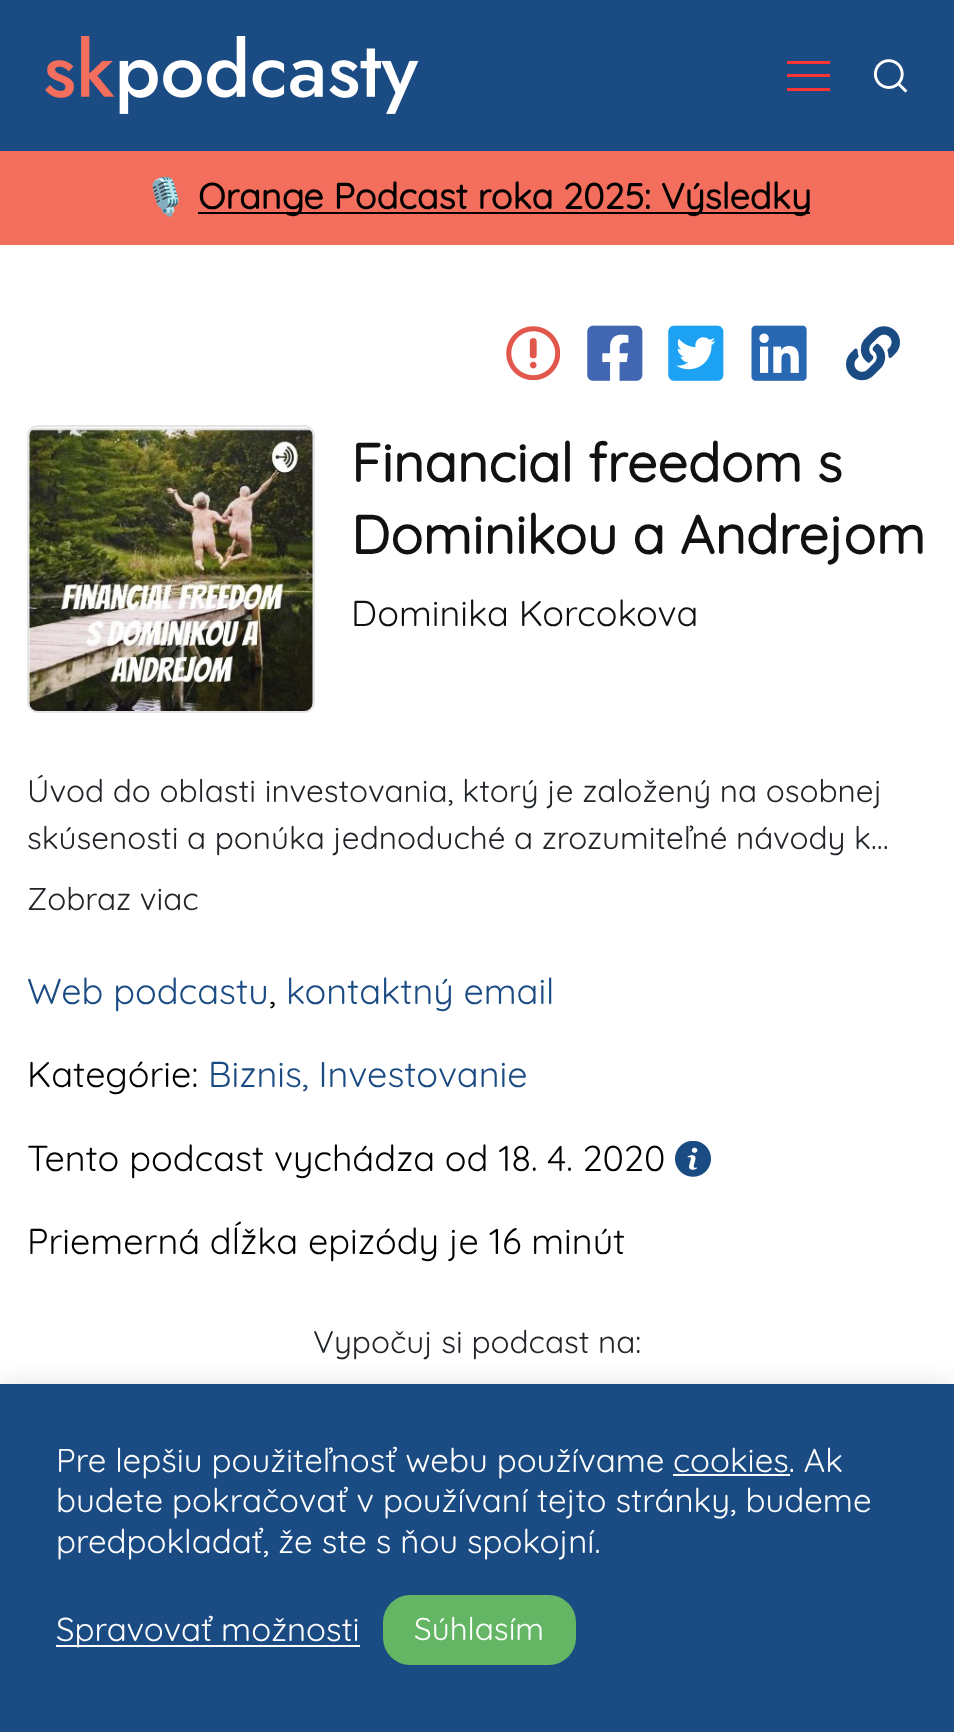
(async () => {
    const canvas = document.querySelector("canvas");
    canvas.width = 954;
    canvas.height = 1732;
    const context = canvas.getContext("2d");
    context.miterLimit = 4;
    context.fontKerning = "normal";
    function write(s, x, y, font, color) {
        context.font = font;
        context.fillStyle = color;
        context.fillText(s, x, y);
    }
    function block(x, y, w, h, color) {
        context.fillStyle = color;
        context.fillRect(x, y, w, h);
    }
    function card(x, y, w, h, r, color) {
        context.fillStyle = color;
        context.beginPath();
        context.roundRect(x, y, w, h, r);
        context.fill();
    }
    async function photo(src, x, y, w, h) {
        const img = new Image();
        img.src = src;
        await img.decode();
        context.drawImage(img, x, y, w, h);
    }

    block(0, 0, 954, 1732, "rgb(255, 255, 255)");
    block(0, 0, 954, 151, "rgb(27, 75, 131)");
    await photo("media/1.png", 45, 36, 374, 78);
    context.fillStyle = "rgb(255, 53, 53)";
    context.beginPath();
    context.moveTo(787, 74);
    context.lineTo(830, 74);
    context.lineTo(830, 77);
    context.lineTo(787, 77);
    context.closePath();
    context.moveTo(787, 61);
    context.lineTo(830, 61);
    context.lineTo(830, 64);
    context.lineTo(787, 64);
    context.closePath();
    context.moveTo(787, 88);
    context.lineTo(830, 88);
    context.lineTo(830, 91);
    context.lineTo(787, 91);
    context.closePath();
    context.fill();
    await photo("media/2.png", 873, 59, 35, 34);
    block(0, 151, 954, 94, "rgb(243, 110, 92)");
    write("🎙️", 143, 209, "36px Noto Color Emoji", "rgb(0, 0, 0)");
    block(198, 212, 612, 2, "rgb(0, 0, 0)");
    write("Orange Podcast roka 2025: Výsledky", 198, 209, "bold 36px Quicksand", "rgb(0, 0, 0)");
    await photo("media/3.png", 506, 326, 54, 54);
    await photo("media/4.png", 587, 325, 56, 56);
    await photo("media/5.png", 668, 325, 56, 56);
    await photo("media/6.png", 751, 325, 56, 56);
    await photo("media/7.png", 846, 326, 54, 55);
    context.beginPath();
    context.roundRect(28, 426, 286, 286, 10);
    context.strokeStyle = "rgb(229, 229, 229)";
    context.lineWidth = 2;
    context.stroke();
    await photo("media/8.png", 29, 427, 284, 284);
    write("Financial freedom s", 351, 482, "bold 54px Quicksand", "rgb(17, 17, 17)");
    write("Dominikou a Andrejom", 351, 554, "bold 54px Quicksand", "rgb(17, 17, 17)");
    write("Dominika Korcokova", 351, 626, "300 36px Quicksand", "rgb(17, 17, 17)");
    write("Úvod do oblasti investovania, ktorý je založený na osobnej", 27, 802, "300 31.5px Quicksand", "rgb(33, 37, 41)");
    write("skúsenosti a ponúka jednoduché a zrozumiteľné návody k…", 27, 849, "300 31.5px Quicksand", "rgb(33, 37, 41)");
    write("Zobraz viac", 27, 910, "300 31.5px Quicksand", "rgb(33, 37, 41)");
    write("Web podcastu", 27, 1004, "300 36px Quicksand", "rgb(27, 75, 131)");
    write(",", 269, 1004, "300 36px Quicksand", "rgb(0, 0, 0)");
    write("kontaktný email", 286, 1004, "300 36px Quicksand", "rgb(27, 75, 131)");
    write("Kategórie:", 27, 1087, "300 36px Quicksand", "rgb(0, 0, 0)");
    write("Biznis, Investovanie", 208, 1087, "300 36px Quicksand", "rgb(27, 75, 131)");
    write("Tento podcast vychádza od 18. 4. 2020", 27, 1171, "300 36px Quicksand", "rgb(0, 0, 0)");
    await photo("media/9.png", 675, 1141, 36, 36);
    write("Priemerná dĺžka epizódy je 16 minút", 27, 1254, "300 36px Quicksand", "rgb(0, 0, 0)");
    write("Vypočuj si podcast na:", 313, 1353, "300 31.5px Quicksand", "rgb(33, 37, 41)");
    context.fillStyle = "rgba(172, 171, 171, 0.3)";
    context.filter = "blur(11px)";
    context.beginPath();
    context.rect(0, 1382, 954, 348);
    context.fill();
    context.filter = "none";
    block(0, 1384, 954, 348, "rgb(27, 75, 131)");
    write("Pre lepšiu použiteľnosť webu používame", 56, 1472, "300 33px Quicksand", "rgb(255, 255, 255)");
    write("cookies. Ak", 673, 1472, "300 33px Quicksand", "rgb(255, 255, 255)");
    block(673, 1474, 117, 2, "rgb(255, 255, 255)");
    write("budete pokračovať v používaní tejto stránky, budeme", 56, 1512, "300 33px Quicksand", "rgb(255, 255, 255)");
    write("predpokladať, že ste s ňou spokojní.", 56, 1553, "300 33px Quicksand", "rgb(255, 255, 255)");
    block(56, 1645, 304, 2, "rgb(255, 255, 255)");
    write("Spravovať možnosti", 56, 1641, "300 33px Quicksand", "rgb(255, 255, 255)");
    card(383, 1595, 193, 70, 27, "rgb(100, 182, 100)");
    write("Súhlasím", 414, 1640, "300 31.5px Quicksand", "rgb(255, 255, 255)");
})();
